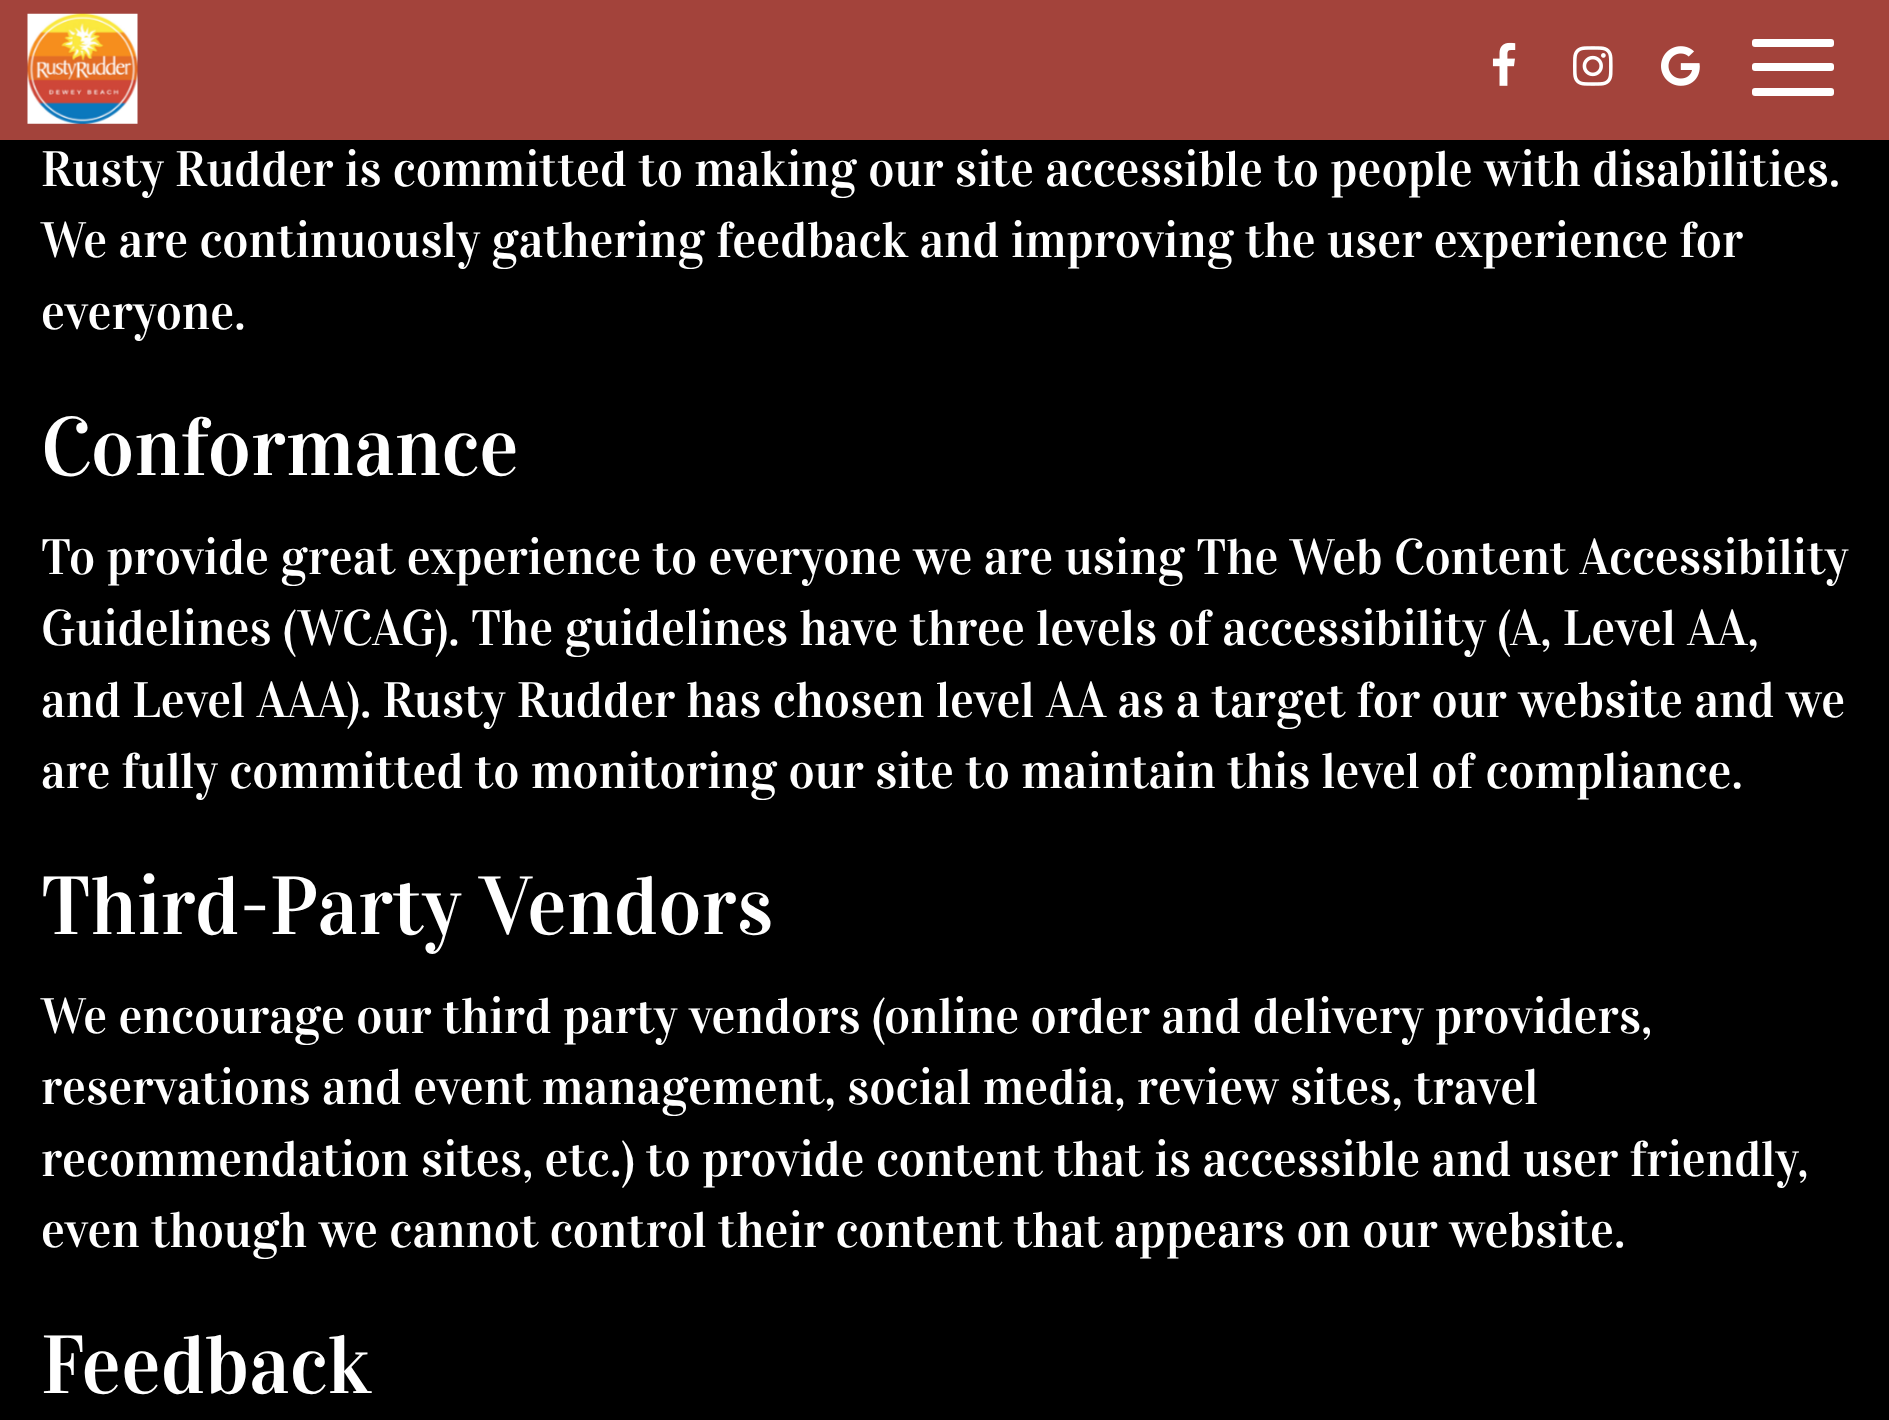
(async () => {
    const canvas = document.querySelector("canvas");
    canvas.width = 1889;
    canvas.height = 1420;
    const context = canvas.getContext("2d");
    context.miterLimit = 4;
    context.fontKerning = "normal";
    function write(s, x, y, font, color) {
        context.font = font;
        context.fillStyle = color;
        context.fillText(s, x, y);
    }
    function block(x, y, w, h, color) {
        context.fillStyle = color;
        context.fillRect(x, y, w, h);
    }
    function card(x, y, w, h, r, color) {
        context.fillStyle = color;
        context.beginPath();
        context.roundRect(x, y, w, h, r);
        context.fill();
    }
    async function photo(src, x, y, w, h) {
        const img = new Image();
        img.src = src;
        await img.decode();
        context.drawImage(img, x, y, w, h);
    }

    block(0, 0, 1889, 1420, "rgb(0, 0, 0)");
    context.fillStyle = "rgba(0, 0, 0, 0.4)";
    context.filter = "blur(5.5px)";
    context.beginPath();
    context.rect(0, 11, 1889, 140);
    context.fill();
    context.filter = "none";
    block(0, 0, 1889, 140, "rgb(163, 67, 59)");
    await photo("media/1.png", 27, 13, 111, 111);
    await photo("media/2.png", 1492, 42, 24, 44);
    await photo("media/3.png", 1573, 46, 40, 40);
    await photo("media/4.png", 1661, 46, 39, 40);
    card(1752, 39, 82, 8, 3, "rgb(255, 255, 255)");
    card(1752, 63, 82, 8, 3, "rgb(255, 255, 255)");
    card(1752, 88, 82, 8, 3, "rgb(255, 255, 255)");
    write("Rusty Rudder is committed to making our site accessible to people with disabilities.", 41, 186, "50.05px Vidaloka", "rgb(255, 255, 255)");
    write("We are continuously gathering feedback and improving the user experience for", 41, 257, "50.05px Vidaloka", "rgb(255, 255, 255)");
    write("everyone.", 41, 329, "50.05px Vidaloka", "rgb(255, 255, 255)");
    write("Conformance", 41, 475, "82.5px Vidaloka", "rgb(255, 255, 255)");
    write("To provide great experience to everyone we are using The Web Content Accessibility", 41, 574, "50.05px Vidaloka", "rgb(255, 255, 255)");
    write("Guidelines (WCAG). The guidelines have three levels of accessibility (A, Level AA,", 41, 645, "50.05px Vidaloka", "rgb(255, 255, 255)");
    write("and Level AAA). Rusty Rudder has chosen level AA as a target for our website and we", 41, 717, "50.05px Vidaloka", "rgb(255, 255, 255)");
    write("are fully committed to monitoring our site to maintain this level of compliance.", 41, 788, "50.05px Vidaloka", "rgb(255, 255, 255)");
    write("Third-Party Vendors", 41, 934, "82.5px Vidaloka", "rgb(255, 255, 255)");
    write("We encourage our third party vendors (online order and delivery providers,", 41, 1033, "50.05px Vidaloka", "rgb(255, 255, 255)");
    write("reservations and event management, social media, review sites, travel", 41, 1104, "50.05px Vidaloka", "rgb(255, 255, 255)");
    write("recommendation sites, etc.) to provide content that is accessible and user friendly,", 41, 1176, "50.05px Vidaloka", "rgb(255, 255, 255)");
    write("even though we cannot control their content that appears on our website.", 41, 1247, "50.05px Vidaloka", "rgb(255, 255, 255)");
    write("Feedback", 41, 1393, "82.5px Vidaloka", "rgb(255, 255, 255)");
})();
